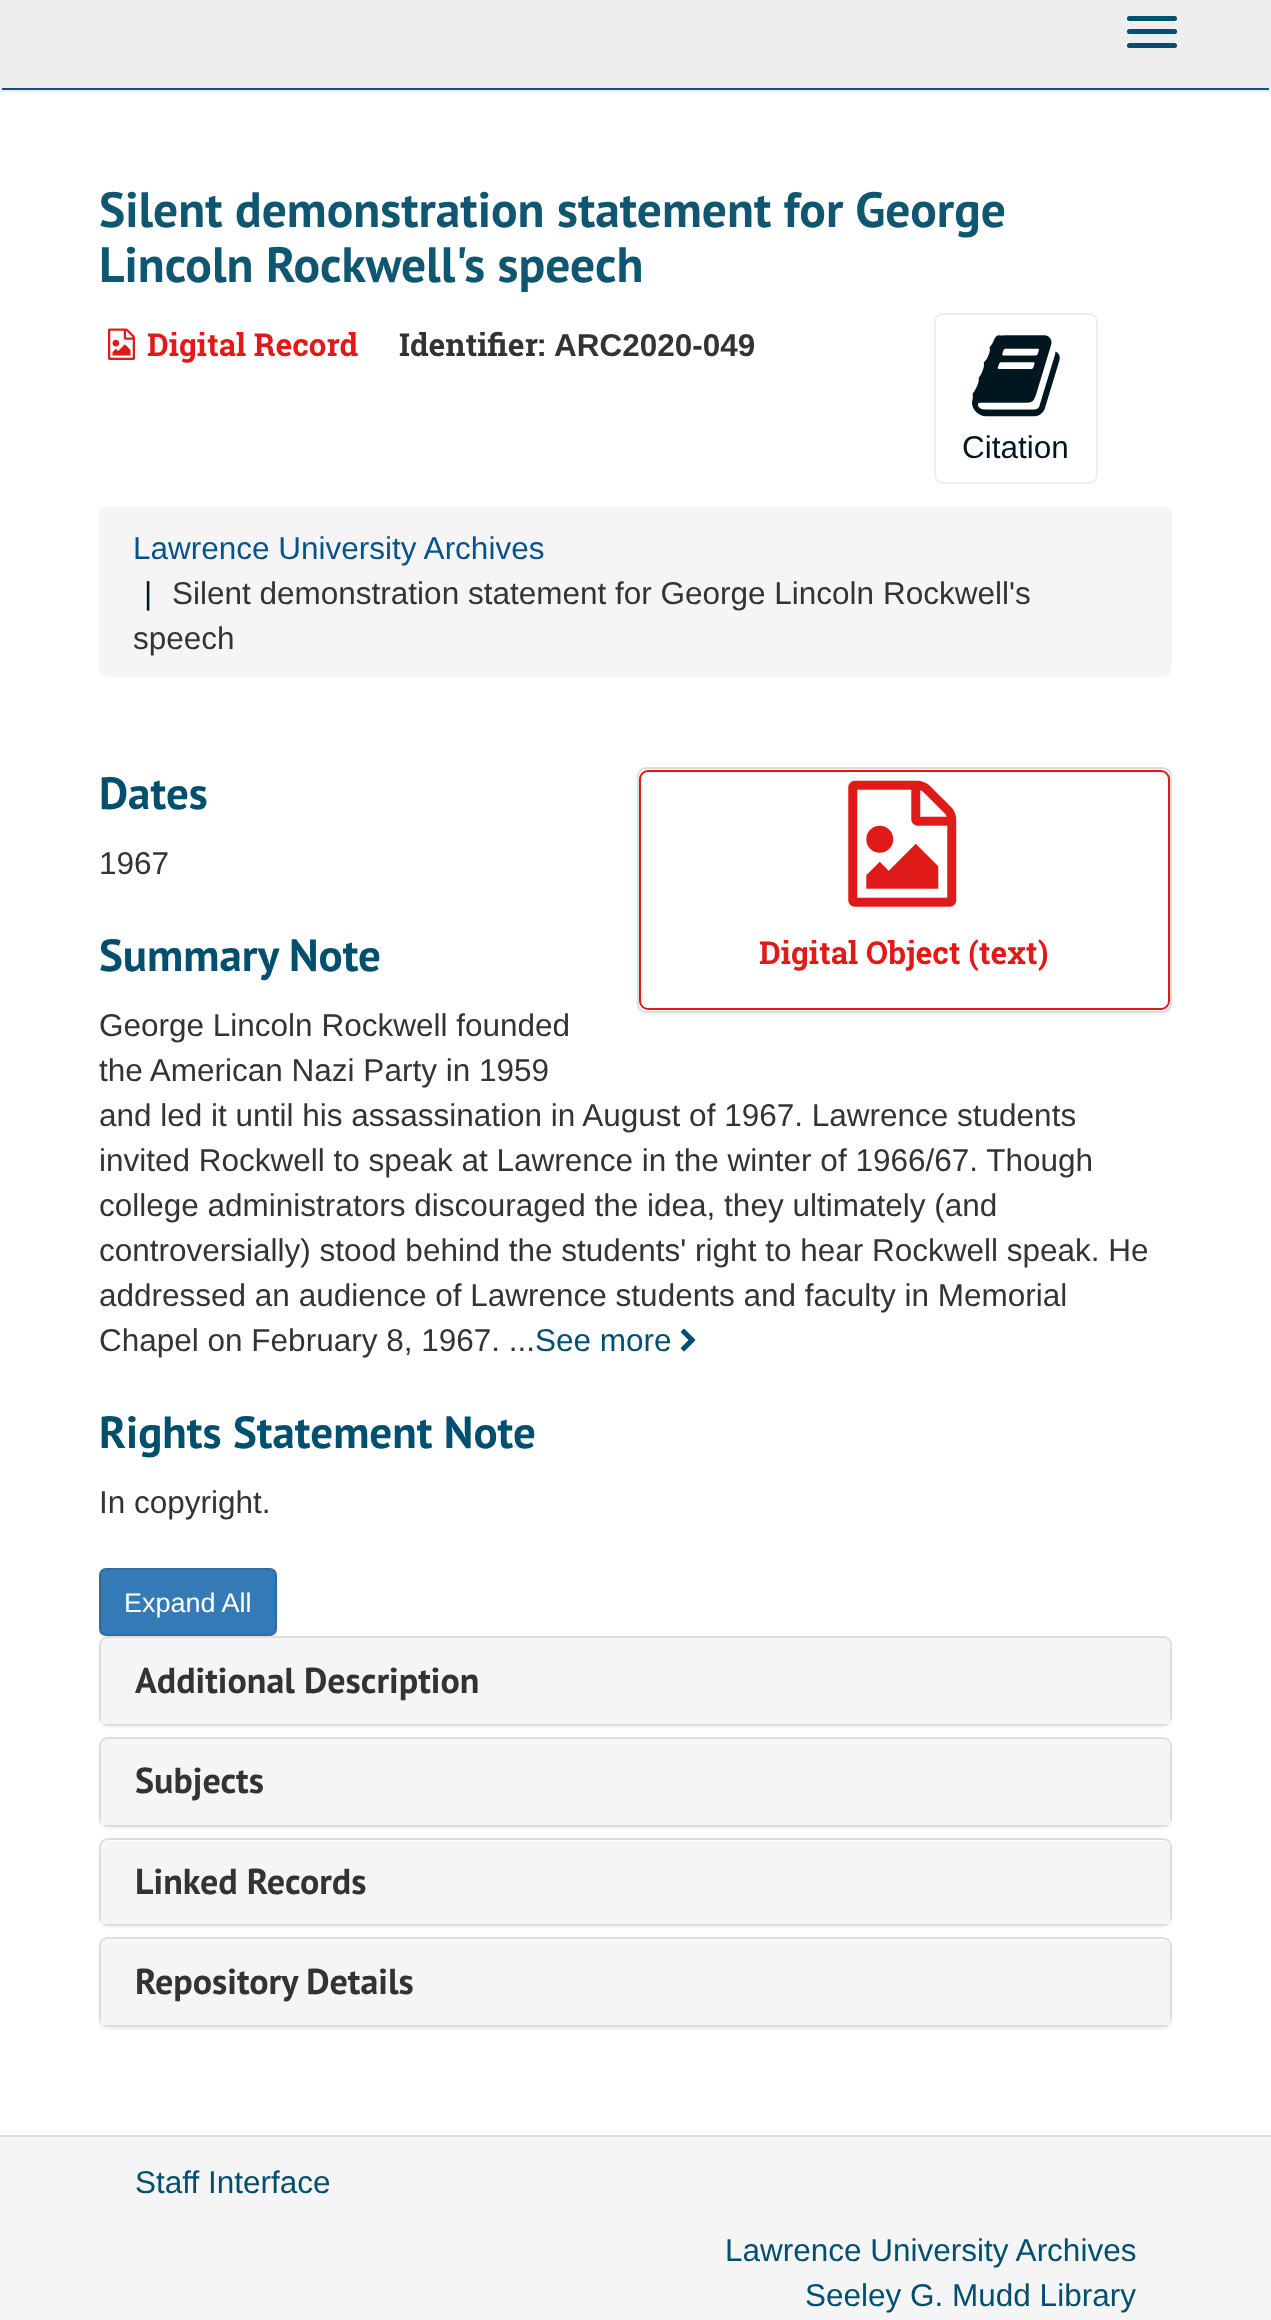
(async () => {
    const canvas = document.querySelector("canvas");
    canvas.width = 1271;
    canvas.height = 2320;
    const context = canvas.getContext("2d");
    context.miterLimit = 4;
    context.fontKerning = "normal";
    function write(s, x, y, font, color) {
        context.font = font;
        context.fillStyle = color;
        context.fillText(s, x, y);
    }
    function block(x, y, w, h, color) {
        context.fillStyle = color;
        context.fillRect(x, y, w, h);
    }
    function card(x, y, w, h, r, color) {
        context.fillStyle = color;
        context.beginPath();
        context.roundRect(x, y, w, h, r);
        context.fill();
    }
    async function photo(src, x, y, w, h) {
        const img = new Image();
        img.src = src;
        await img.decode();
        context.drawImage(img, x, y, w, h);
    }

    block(0, 0, 1271, 2320, "rgb(255, 255, 255)");
    block(0, 0, 1271, 92, "rgb(238, 238, 238)");
    block(2, 88, 1267, 2, "rgb(5, 83, 138)");
    card(1127, 16, 50, 5, 2.5, "rgb(0, 79, 111)");
    card(1127, 29, 50, 5, 2.5, "rgb(0, 79, 111)");
    card(1127, 43, 50, 5, 2.5, "rgb(0, 79, 111)");
    write("Silent demonstration statement for George", 99, 227, "bold 49.5px PT Sans", "rgb(15, 86, 112)");
    write("Lincoln Rockwell's speech", 99, 282, "bold 49.5px PT Sans", "rgb(15, 86, 112)");
    await photo("media/1.png", 108, 328, 27, 32);
    write("Digital Record", 147, 356, "bold 31.5px Roboto Slab", "rgb(224, 25, 25)");
    write("Identifier:", 399, 356, "bold 31.5px Roboto Slab", "rgb(51, 51, 51)");
    write("ARC2020-049", 554, 356, "bold 31.5px Liberation Sans", "rgb(51, 51, 51)");
    context.beginPath();
    context.roundRect(935, 314, 162, 169, 8);
    context.strokeStyle = "rgb(238, 238, 238)";
    context.lineWidth = 2;
    context.stroke();
    await photo("media/2.png", 972, 335, 88, 82);
    write("Citation", 962, 458, "31.5px Liberation Sans", "rgb(0, 23, 31)");
    card(99, 506, 1073, 171, 9, "rgb(245, 245, 245)");
    write("Lawrence University Archives", 133, 559, "31.5px Liberation Sans", "rgb(5, 83, 138)");
    write("|", 144, 604, "31.5px Liberation Sans", "rgb(0, 23, 31)");
    write("Silent demonstration statement for George Lincoln Rockwell's", 172, 604, "31.5px Liberation Sans", "rgb(51, 51, 51)");
    write("speech", 133, 649, "31.5px Liberation Sans", "rgb(51, 51, 51)");
    write("Dates", 99, 809, "bold 45px PT Sans", "rgb(0, 79, 111)");
    write("1967", 99, 874, "31.5px Liberation Sans", "rgb(51, 51, 51)");
    write("Summary Note", 99, 971, "bold 45px PT Sans", "rgb(0, 79, 111)");
    write("George Lincoln Rockwell founded", 99, 1036, "31.5px Liberation Sans", "rgb(51, 51, 51)");
    write("the American Nazi Party in 1959", 99, 1081, "31.5px Liberation Sans", "rgb(51, 51, 51)");
    write("and led it until his assassination in August of 1967. Lawrence students", 99, 1126, "31.5px Liberation Sans", "rgb(51, 51, 51)");
    write("invited Rockwell to speak at Lawrence in the winter of 1966/67. Though", 99, 1171, "31.5px Liberation Sans", "rgb(51, 51, 51)");
    write("college administrators discouraged the idea, they ultimately (and", 99, 1216, "31.5px Liberation Sans", "rgb(51, 51, 51)");
    write("controversially) stood behind the students' right to hear Rockwell speak. He", 99, 1261, "31.5px Liberation Sans", "rgb(51, 51, 51)");
    write("addressed an audience of Lawrence students and faculty in Memorial", 99, 1306, "31.5px Liberation Sans", "rgb(51, 51, 51)");
    write("Chapel on February 8, 1967. ...", 99, 1351, "31.5px Liberation Sans", "rgb(51, 51, 51)");
    write("See more", 535, 1351, "31.5px Liberation Sans", "rgb(0, 79, 111)");
    await photo("media/3.png", 680, 1328, 16, 24);
    write("Rights Statement Note", 99, 1448, "bold 45px PT Sans", "rgb(0, 79, 111)");
    write("In copyright.", 99, 1513, "31.5px Liberation Sans", "rgb(51, 51, 51)");
    context.fillStyle = "rgba(0, 0, 0, 0.05)";
    context.filter = "blur(1px)";
    context.beginPath();
    context.roundRect(637, 770, 535, 245, 9);
    context.fill();
    context.filter = "none";
    context.fillStyle = "rgb(255, 255, 255)";
    context.beginPath();
    context.roundRect(638, 768, 533, 244, 8);
    context.fill();
    context.strokeStyle = "rgb(221, 221, 221)";
    context.stroke();
    context.beginPath();
    context.roundRect(640, 771, 529, 238, 8);
    context.strokeStyle = "rgb(224, 25, 25)";
    context.stroke();
    await photo("media/4.png", 848, 780, 109, 127);
    write("Digital Object (text)", 759, 964, "bold 31.5px Roboto Slab", "rgb(224, 25, 25)");
    context.fillStyle = "rgba(0, 0, 0, 0.05)";
    context.filter = "blur(1px)";
    context.beginPath();
    context.roundRect(99, 1638, 1073, 90, 9);
    context.fill();
    context.filter = "none";
    context.fillStyle = "rgb(51, 122, 183)";
    context.beginPath();
    context.roundRect(100, 1569, 176, 66, 6);
    context.fill();
    context.strokeStyle = "rgb(46, 109, 164)";
    context.stroke();
    write("Expand All", 124, 1612, "27px Liberation Sans", "rgb(255, 255, 255)");
    context.beginPath();
    context.roundRect(100, 1637, 1071, 88, 8);
    context.strokeStyle = "rgb(221, 221, 221)";
    context.stroke();
    context.fillStyle = "rgb(245, 245, 245)";
    context.beginPath();
    context.roundRect(101, 1638, 1069, 86, [7, 7, 0, 0]);
    context.fill();
    write("Additional Description", 135, 1693, "bold 36px PT Sans", "rgb(51, 51, 51)");
    context.fillStyle = "rgba(0, 0, 0, 0.05)";
    context.filter = "blur(1px)";
    context.beginPath();
    context.roundRect(99, 1739, 1073, 90, 9);
    context.fill();
    context.filter = "none";
    context.beginPath();
    context.roundRect(100, 1738, 1071, 88, 8);
    context.stroke();
    context.fillStyle = "rgb(245, 245, 245)";
    context.beginPath();
    context.roundRect(101, 1739, 1069, 86, [7, 7, 0, 0]);
    context.fill();
    write("Subjects", 135, 1793, "bold 36px PT Sans", "rgb(51, 51, 51)");
    context.fillStyle = "rgba(0, 0, 0, 0.05)";
    context.filter = "blur(1px)";
    context.beginPath();
    context.roundRect(99, 1841, 1073, 87, 9);
    context.fill();
    context.filter = "none";
    context.fillStyle = "rgb(255, 255, 255)";
    context.beginPath();
    context.roundRect(100, 1839, 1071, 86, 8);
    context.fill();
    context.stroke();
    context.fillStyle = "rgb(245, 245, 245)";
    context.beginPath();
    context.roundRect(101, 1841, 1069, 83, [7, 7, 0, 0]);
    context.fill();
    write("Linked Records", 135, 1894, "bold 36px PT Sans", "rgb(51, 51, 51)");
    context.fillStyle = "rgba(0, 0, 0, 0.05)";
    context.filter = "blur(1px)";
    context.beginPath();
    context.roundRect(99, 1940, 1073, 90, 9);
    context.fill();
    context.filter = "none";
    context.fillStyle = "rgb(255, 255, 255)";
    context.beginPath();
    context.roundRect(100, 1938, 1071, 88, 8);
    context.fill();
    context.stroke();
    context.fillStyle = "rgb(245, 245, 245)";
    context.beginPath();
    context.roundRect(101, 1940, 1069, 85, [7, 7, 0, 0]);
    context.fill();
    write("Repository Details", 135, 1994, "bold 36px PT Sans", "rgb(51, 51, 51)");
    block(0, 2137, 1271, 183, "rgb(245, 245, 245)");
    block(0, 2135, 1271, 2, "rgb(221, 221, 221)");
    write("Staff Interface", 135, 2193, "31.5px Liberation Sans", "rgb(0, 79, 111)");
    write("Lawrence University Archives", 725, 2261, "31.5px Liberation Sans", "rgb(0, 79, 111)");
    write("Seeley G. Mudd Library", 805, 2306, "31.5px Liberation Sans", "rgb(0, 79, 111)");
})();
